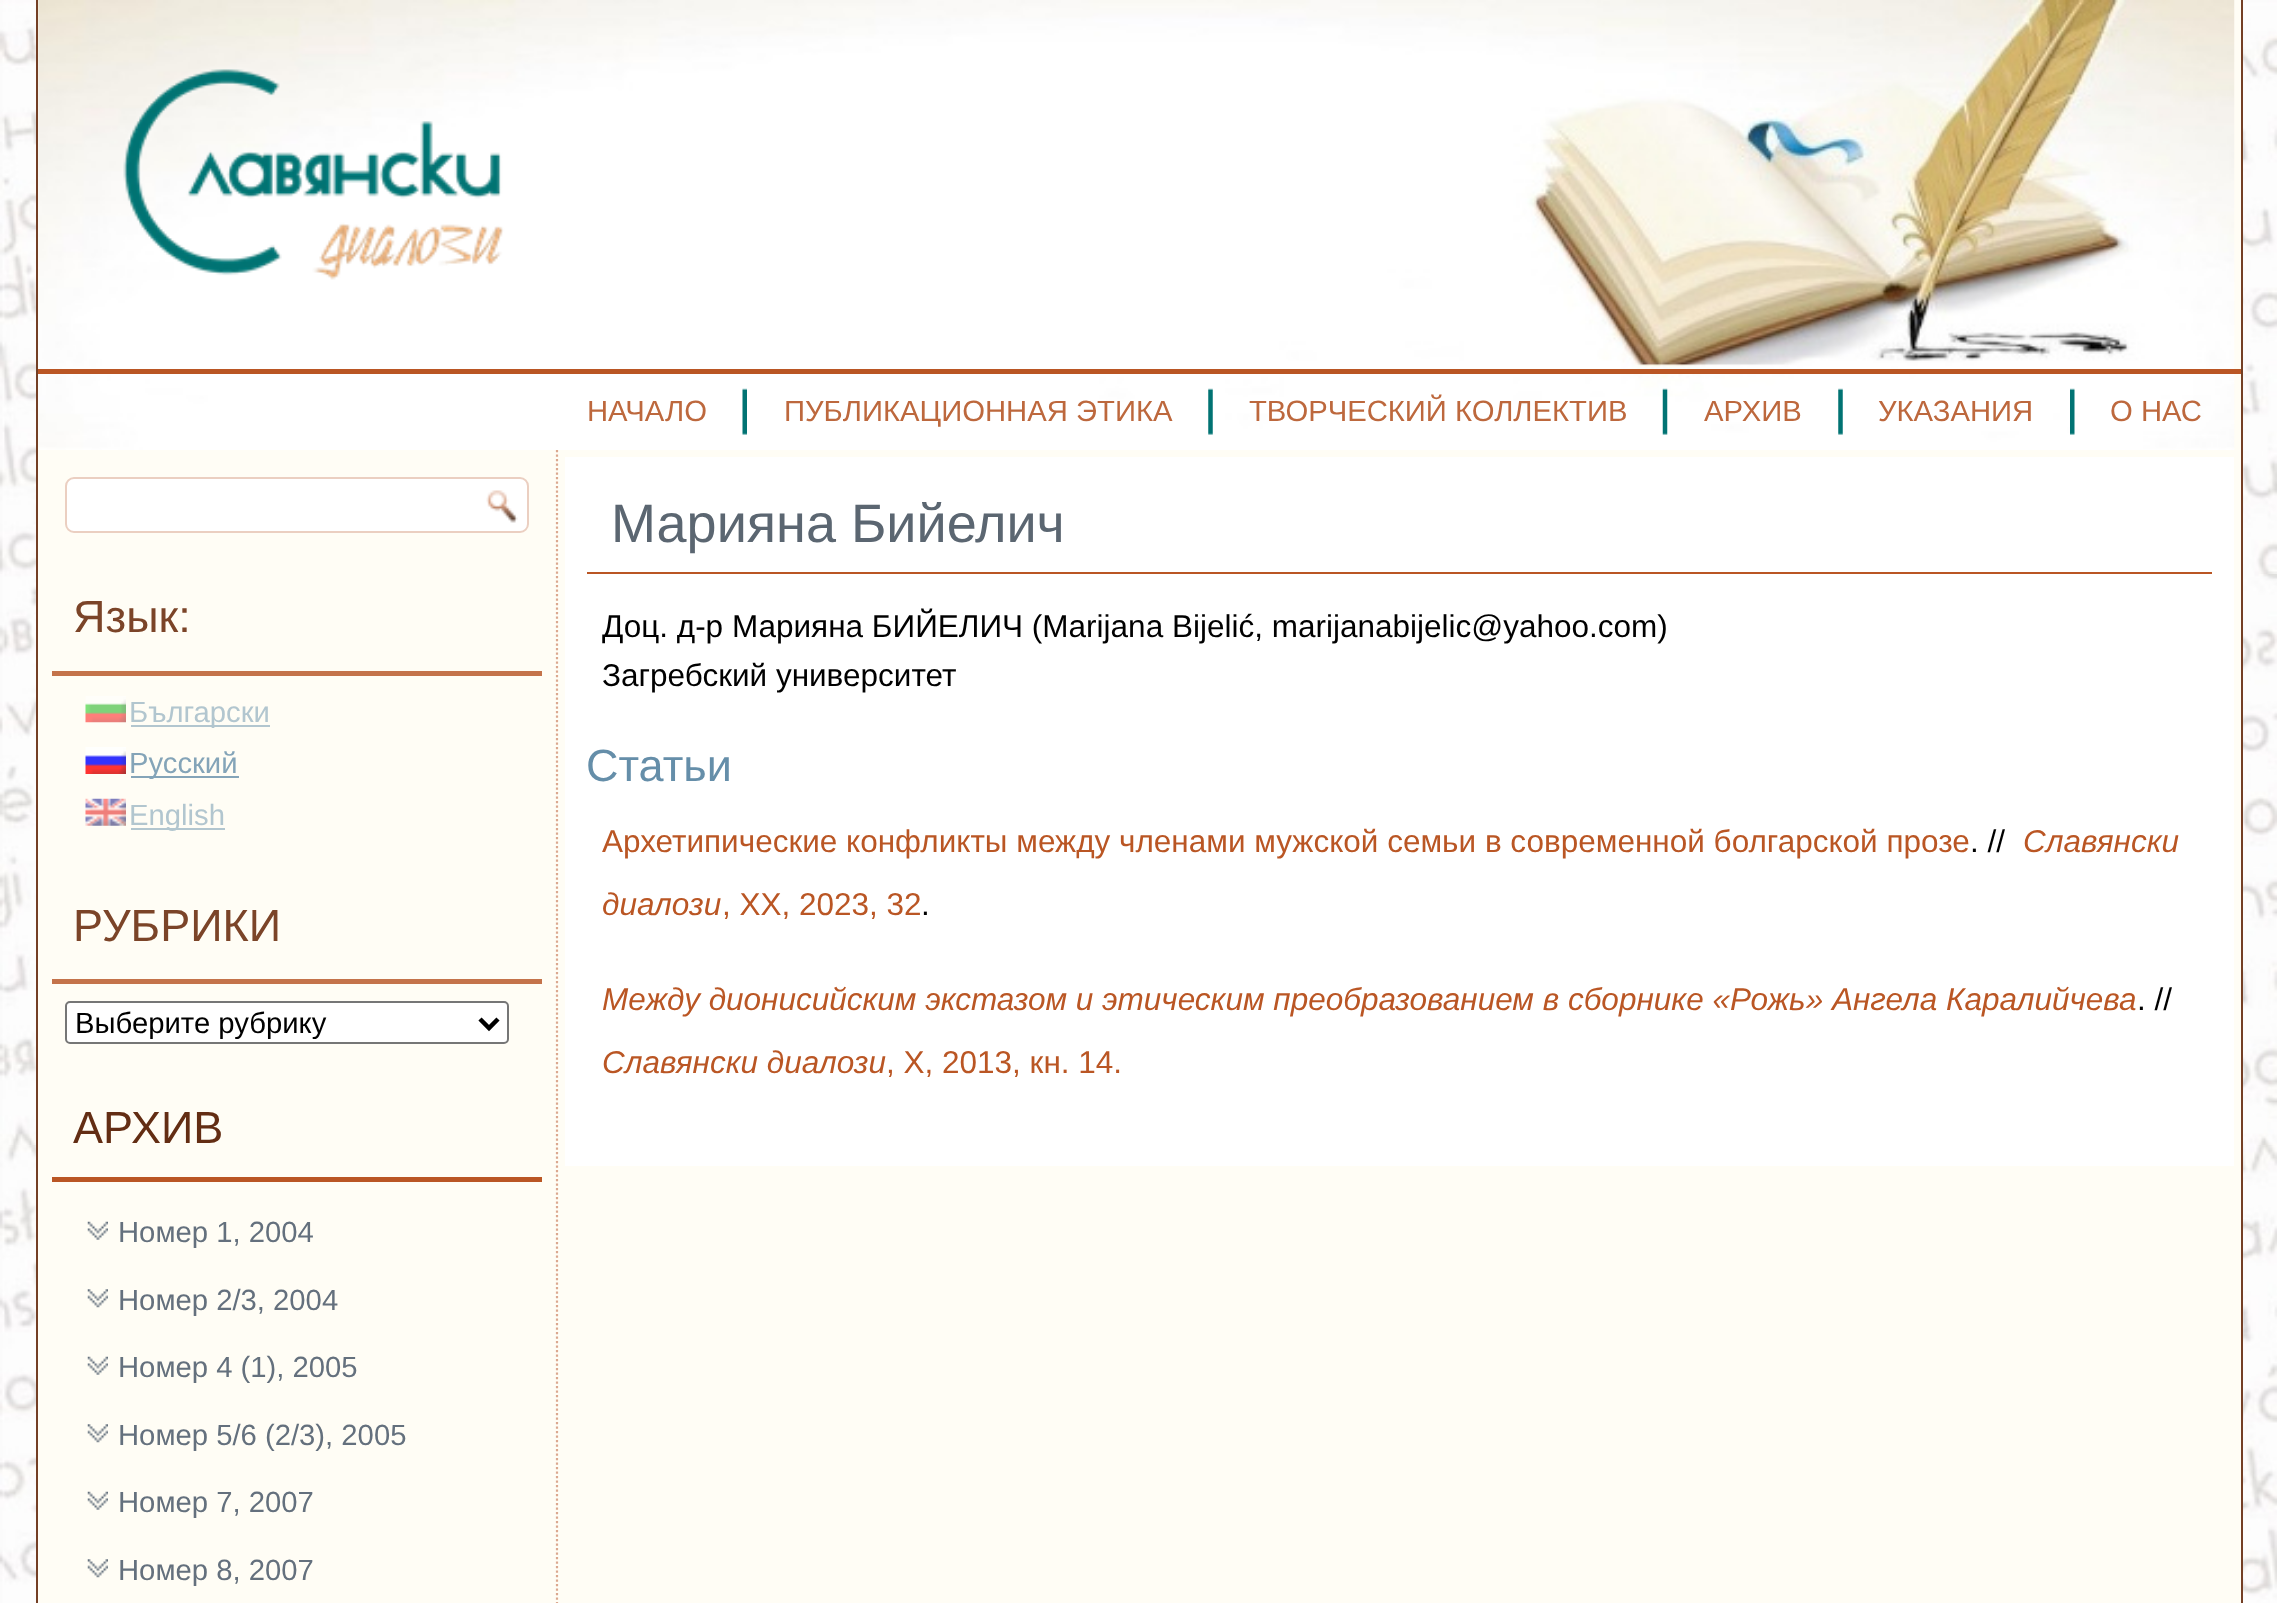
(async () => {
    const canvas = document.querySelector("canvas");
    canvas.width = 2277;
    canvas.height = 1603;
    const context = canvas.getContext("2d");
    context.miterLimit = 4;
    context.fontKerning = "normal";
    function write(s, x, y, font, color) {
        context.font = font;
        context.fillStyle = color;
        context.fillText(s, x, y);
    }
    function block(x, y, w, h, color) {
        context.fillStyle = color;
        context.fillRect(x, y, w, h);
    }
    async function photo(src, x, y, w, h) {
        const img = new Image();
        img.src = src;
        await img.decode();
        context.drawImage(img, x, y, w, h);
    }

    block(0, 0, 2277, 1603, "rgb(255, 255, 255)");
    await photo("media/1.png", 0, 0, 2277, 1603);
    block(38, 0, 2203, 1603, "rgb(255, 253, 245)");
    block(2241, 0, 2, 1603, "rgb(116, 63, 37)");
    block(36, 0, 2, 1603, "rgb(116, 63, 37)");
    await photo("media/2.png", 38, 0, 2197, 450);
    block(38, 369, 2203, 5, "rgb(186, 86, 36)");
    write("НАЧАЛО", 587, 421, "29.25px Liberation Sans", "rgb(189, 104, 61)");
    await photo("media/3.png", 742, 388, 5, 47);
    write("ПУБЛИКАЦИОННАЯ ЭТИКА", 784, 421, "29.25px Liberation Sans", "rgb(189, 104, 61)");
    await photo("media/4.png", 1208, 388, 5, 47);
    write("ТВОРЧЕСКИЙ КОЛЛЕКТИВ", 1249, 421, "29.25px Liberation Sans", "rgb(189, 104, 61)");
    await photo("media/5.png", 1662, 388, 6, 47);
    write("АРХИВ", 1704, 421, "29.25px Liberation Sans", "rgb(189, 104, 61)");
    await photo("media/4.png", 1838, 388, 5, 47);
    write("УКАЗАНИЯ", 1878, 421, "29.25px Liberation Sans", "rgb(189, 104, 61)");
    await photo("media/6.png", 2070, 388, 5, 47);
    write("О НАС", 2110, 421, "29.25px Liberation Sans", "rgb(189, 104, 61)");
    context.beginPath();
    context.moveTo(557, 450);
    context.lineTo(557, 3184);
    context.strokeStyle = "rgb(219, 168, 143)";
    context.lineWidth = 2.2;
    context.setLineDash([2.25, 2.25]);
    context.stroke();
    context.fillStyle = "rgb(255, 255, 255)";
    context.beginPath();
    context.roundRect(66, 478, 462, 54, 8);
    context.fill();
    context.strokeStyle = "rgb(235, 207, 193)";
    context.lineWidth = 2;
    context.setLineDash([]);
    context.stroke();
    await photo("media/7.png", 486, 490, 32, 33);
    block(52, 671, 490, 5, "rgb(196, 115, 74)");
    write("Язык:", 73, 632, "45px Liberation Sans", "rgb(123, 68, 40)");
    await photo("media/8.png", 85, 696, 41, 27);
    block(131, 725, 139, 2, "rgb(178, 198, 207)");
    write("Български", 129, 722, "29.25px Liberation Sans", "rgb(178, 198, 207)");
    await photo("media/9.png", 85, 747, 41, 27);
    block(131, 776, 108, 2, "rgb(132, 164, 184)");
    write("Русский", 129, 773, "29.25px Liberation Sans", "rgb(132, 164, 184)");
    await photo("media/10.png", 85, 798, 41, 28);
    block(131, 828, 94, 2, "rgb(178, 198, 207)");
    write("English", 129, 825, "29.25px Liberation Sans", "rgb(178, 198, 207)");
    block(52, 979, 490, 5, "rgb(196, 115, 74)");
    write("РУБРИКИ", 73, 941, "45px Liberation Sans", "rgb(123, 68, 40)");
    context.fillStyle = "rgb(255, 255, 255)";
    context.beginPath();
    context.roundRect(66, 1002, 442, 41, 4);
    context.fill();
    context.strokeStyle = "rgb(118, 118, 118)";
    context.stroke();
    context.beginPath();
    context.moveTo(480, 1019);
    context.lineTo(489, 1028);
    context.lineTo(498, 1019);
    context.strokeStyle = "rgb(0, 0, 0)";
    context.lineWidth = 4.5;
    context.stroke();
    write("Выберите рубрику", 75, 1033, "29.25px Liberation Sans", "rgb(0, 0, 0)");
    block(52, 1177, 490, 5, "rgb(186, 86, 36)");
    write("АРХИВ", 73, 1143, "45px Liberation Sans", "rgb(99, 45, 19)");
    await photo("media/11.png", 87, 1221, 21, 19);
    write("Номер 1, 2004", 118, 1242, "29.25px Liberation Sans", "rgb(100, 112, 125)");
    await photo("media/12.png", 87, 1289, 21, 19);
    write("Номер 2/3, 2004", 118, 1310, "29.25px Liberation Sans", "rgb(100, 112, 125)");
    await photo("media/11.png", 87, 1356, 21, 19);
    write("Номер 4 (1), 2005", 118, 1377, "29.25px Liberation Sans", "rgb(100, 112, 125)");
    await photo("media/12.png", 87, 1424, 21, 19);
    write("Номер 5/6 (2/3), 2005", 118, 1445, "29.25px Liberation Sans", "rgb(100, 112, 125)");
    await photo("media/11.png", 87, 1491, 21, 19);
    write("Номер 7, 2007", 118, 1512, "29.25px Liberation Sans", "rgb(100, 112, 125)");
    await photo("media/13.png", 87, 1559, 21, 19);
    write("Номер 8, 2007", 118, 1580, "29.25px Liberation Sans", "rgb(100, 112, 125)");
    block(565, 457, 1669, 709, "rgb(255, 255, 255)");
    block(587, 572, 1625, 2, "rgb(186, 86, 36)");
    write("Марияна Бийелич", 611, 542, "54px Liberation Sans", "rgb(91, 102, 113)");
    write("Доц. д-р Марияна БИЙЕЛИЧ (Marijana Bijelić, marijanabijelic@yahoo.com)", 602, 637, "31.5px Liberation Sans", "rgb(0, 0, 0)");
    write("Загребский университет", 602, 686, "31.5px Liberation Sans", "rgb(0, 0, 0)");
    write("Статьи", 586, 781, "45px Liberation Sans", "rgb(101, 142, 169)");
    write("Архетипические конфликты между членами мужской семьи в современной болгарской прозе", 602, 852, "31.5px Liberation Sans", "rgb(186, 86, 36)");
    write(". //", 1970, 852, "31.5px Liberation Sans", "rgb(0, 0, 0)");
    write("Славянски", 2023, 852, "italic 31.5px Liberation Sans", "rgb(186, 86, 36)");
    write("диалози", 602, 915, "italic 31.5px Liberation Sans", "rgb(186, 86, 36)");
    write(", XX, 2023, 32", 722, 915, "31.5px Liberation Sans", "rgb(186, 86, 36)");
    write(".", 921, 915, "31.5px Liberation Sans", "rgb(0, 0, 0)");
    write("Между дионисийским экстазом и этическим преобразованием в сборнике «Рожь» Ангела Каралийчева", 602, 1010, "italic 31.5px Liberation Sans", "rgb(186, 86, 36)");
    write(". //", 2137, 1010, "31.5px Liberation Sans", "rgb(0, 0, 0)");
    write("Славянски диалози", 602, 1073, "italic 31.5px Liberation Sans", "rgb(186, 86, 36)");
    write(", Х, 2013, кн. 14.", 886, 1073, "31.5px Liberation Sans", "rgb(186, 86, 36)");
})();
